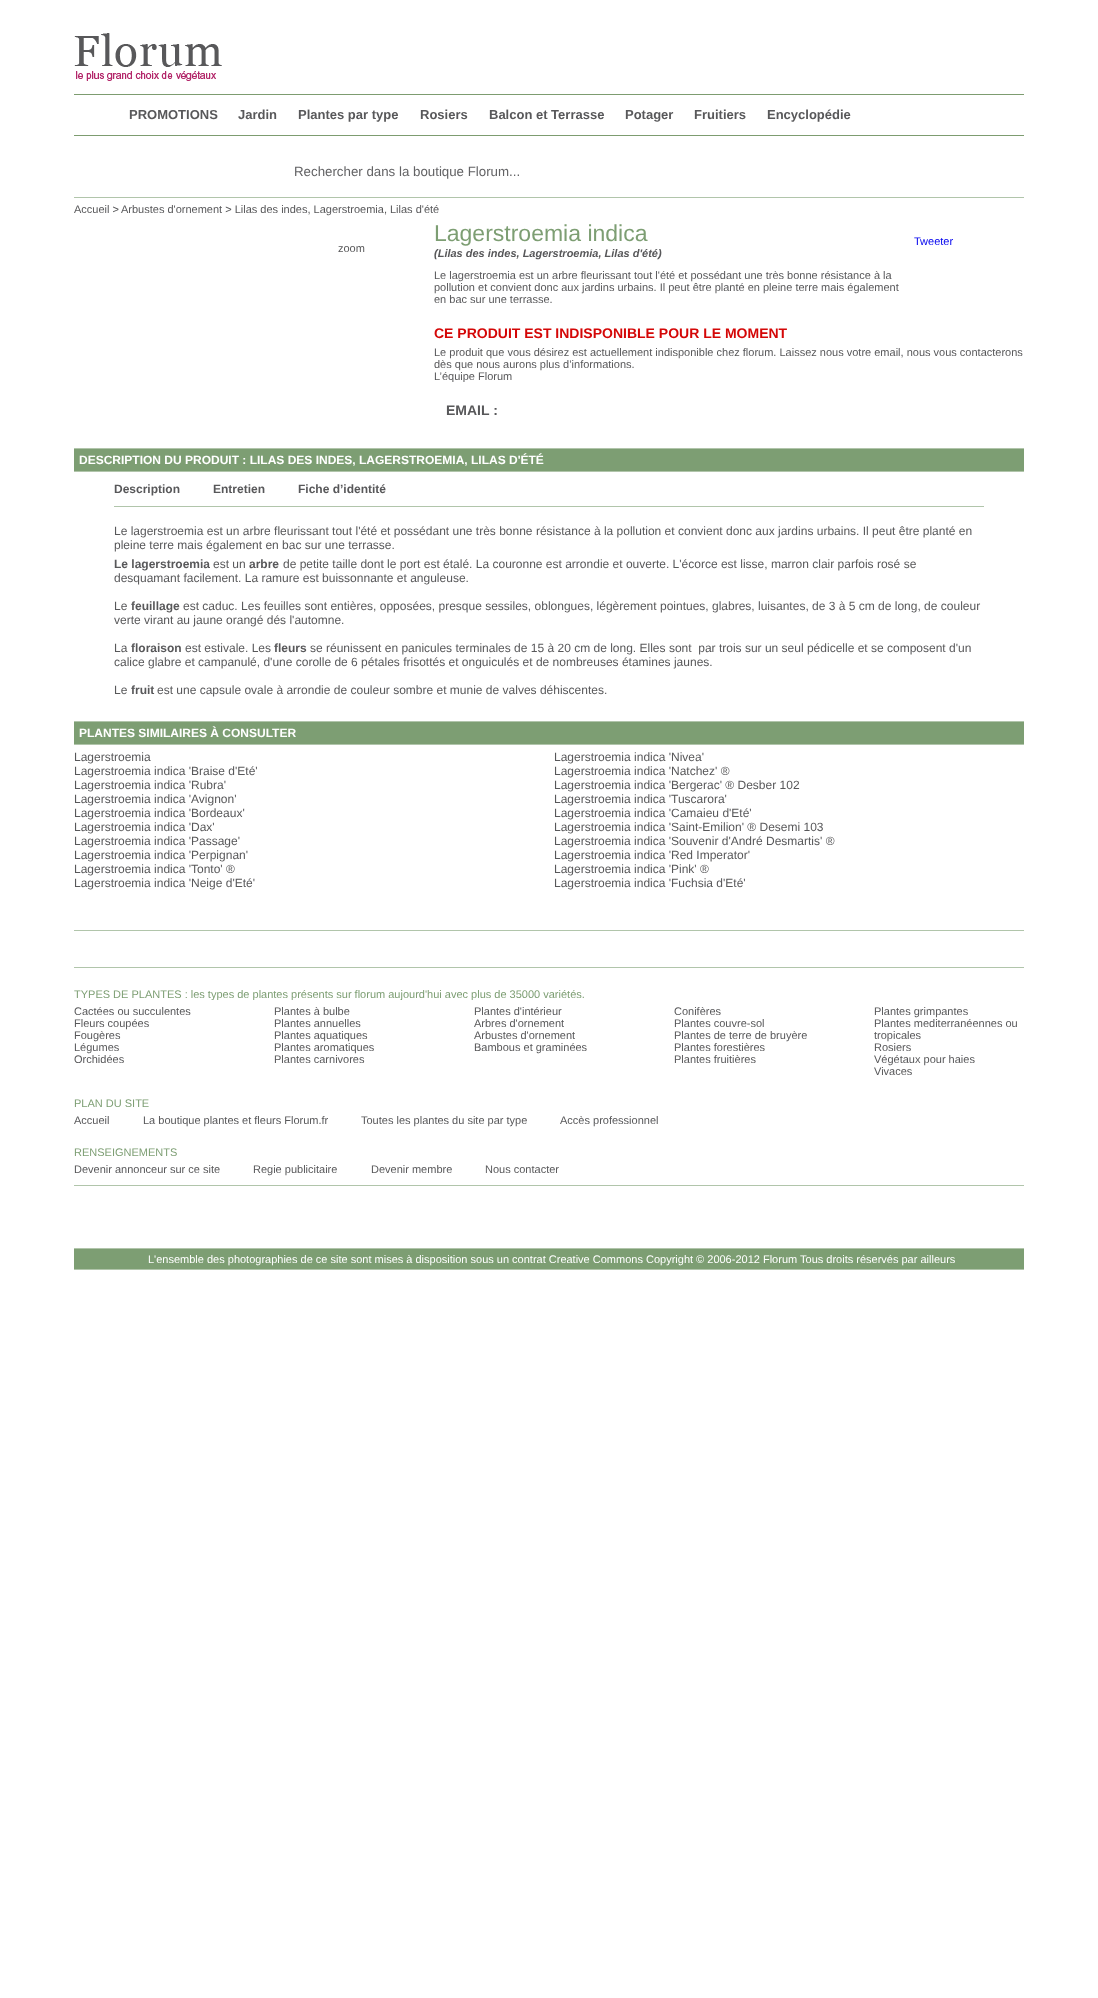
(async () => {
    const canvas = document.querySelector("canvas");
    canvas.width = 1098;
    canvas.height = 1998;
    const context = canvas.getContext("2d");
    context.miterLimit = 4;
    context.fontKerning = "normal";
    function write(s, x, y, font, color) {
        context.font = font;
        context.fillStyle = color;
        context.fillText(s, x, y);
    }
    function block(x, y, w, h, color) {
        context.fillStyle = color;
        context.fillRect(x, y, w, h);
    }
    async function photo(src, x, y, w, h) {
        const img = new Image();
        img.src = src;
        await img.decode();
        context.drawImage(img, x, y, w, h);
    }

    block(0, 0, 1098, 1998, "rgb(255, 255, 255)");
    await photo("media/1.png", 74, 33, 148, 48);
    block(74, 94, 950, 1, "rgb(125, 156, 112)");
    block(74, 135, 950, 1, "rgb(125, 156, 112)");
    write("PROMOTIONS", 129, 119, "bold 13px Liberation Sans", "rgb(88, 88, 90)");
    write("Jardin", 238, 119, "bold 13px Liberation Sans", "rgb(88, 88, 90)");
    write("Plantes par type", 298, 119, "bold 13px Liberation Sans", "rgb(88, 88, 90)");
    write("Rosiers", 420, 119, "bold 13px Liberation Sans", "rgb(88, 88, 90)");
    write("Balcon et Terrasse", 489, 119, "bold 13px Liberation Sans", "rgb(88, 88, 90)");
    write("Potager", 625, 119, "bold 13px Liberation Sans", "rgb(88, 88, 90)");
    write("Fruitiers", 694, 119, "bold 13px Liberation Sans", "rgb(88, 88, 90)");
    write("Encyclopédie", 767, 119, "bold 13px Liberation Sans", "rgb(88, 88, 90)");
    write("Rechercher dans la boutique Florum...", 294, 176, "13.3px Liberation Sans", "rgb(99, 99, 101)");
    block(74, 197, 950, 1, "rgb(177, 197, 171)");
    write("Accueil >", 74, 213, "11px Liberation Sans", "rgb(88, 88, 90)");
    write("Arbustes d'ornement > Lilas des indes, Lagerstroemia, Lilas d'été", 121, 213, "11px Liberation Sans", "rgb(88, 88, 90)");
    write("zoom", 338, 252, "11px Liberation Sans", "rgb(88, 88, 90)");
    write("Lagerstroemia indica", 434, 241, "23px Liberation Sans", "rgb(125, 158, 115)");
    write("(Lilas des indes, Lagerstroemia, Lilas d'été)", 434, 257, "italic bold 11px Liberation Sans", "rgb(88, 88, 90)");
    write("Le lagerstroemia est un arbre fleurissant tout l'été et possédant une très bonne résistance à la", 434, 279, "11px Liberation Sans", "rgb(88, 88, 90)");
    write("pollution et convient donc aux jardins urbains. Il peut être planté en pleine terre mais également", 434, 291, "11px Liberation Sans", "rgb(88, 88, 90)");
    write("en bac sur une terrasse.", 434, 303, "11px Liberation Sans", "rgb(88, 88, 90)");
    write("Tweeter", 914, 245, "11px Liberation Sans", "rgb(0, 0, 238)");
    write("CE PRODUIT EST INDISPONIBLE POUR LE MOMENT", 434, 338, "bold 14px Liberation Sans", "rgb(212, 7, 7)");
    write("Le produit que vous désirez est actuellement indisponible chez florum. Laissez nous votre email, nous vous contacterons", 434, 356, "11px Liberation Sans", "rgb(88, 88, 90)");
    write("dès que nous aurons plus d’informations.", 434, 368, "11px Liberation Sans", "rgb(88, 88, 90)");
    context.save();
    context.beginPath();
    context.rect(434, 341, 590, 41);
    context.clip();
    write("L’équipe Florum", 434, 380, "11px Liberation Sans", "rgb(88, 88, 90)");
    context.restore();
    write("EMAIL :", 446, 415, "bold 14px Liberation Sans", "rgb(88, 88, 90)");
    block(74, 449, 950, 22, "rgb(125, 158, 115)");
    block(74, 448, 950, 1, "rgb(177, 197, 171)");
    block(74, 471, 950, 1, "rgb(177, 197, 171)");
    write("DESCRIPTION DU PRODUIT : LILAS DES INDES, LAGERSTROEMIA, LILAS D'ÉTÉ", 79, 464, "bold 12px Liberation Sans", "rgb(255, 255, 255)");
    write("Description", 114, 493, "bold 12px Liberation Sans", "rgb(88, 88, 90)");
    write("Entretien", 213, 493, "bold 12px Liberation Sans", "rgb(88, 88, 90)");
    write("Fiche d’identité", 298, 493, "bold 12px Liberation Sans", "rgb(88, 88, 90)");
    block(114, 506, 870, 1, "rgb(177, 197, 171)");
    write("Le lagerstroemia est un arbre fleurissant tout l'été et possédant une très bonne résistance à la pollution et convient donc aux jardins urbains. Il peut être planté en", 114, 535, "12px Liberation Sans", "rgb(88, 88, 90)");
    write("pleine terre mais également en bac sur une terrasse.", 114, 549, "12px Liberation Sans", "rgb(88, 88, 90)");
    write("Le lagerstroemia", 114, 568, "bold 12px Liberation Sans", "rgb(88, 88, 90)");
    write("est un", 213, 568, "12px Liberation Sans", "rgb(88, 88, 90)");
    write("arbre", 249, 568, "bold 12px Liberation Sans", "rgb(88, 88, 90)");
    write("de petite taille dont le port est étalé. La couronne est arrondie et ouverte. L'écorce est lisse, marron clair parfois rosé se", 283, 568, "12px Liberation Sans", "rgb(88, 88, 90)");
    write("desquamant facilement. La ramure est buissonnante et anguleuse.", 114, 582, "12px Liberation Sans", "rgb(88, 88, 90)");
    write("Le", 114, 610, "12px Liberation Sans", "rgb(88, 88, 90)");
    write("feuillage", 131, 610, "bold 12px Liberation Sans", "rgb(88, 88, 90)");
    write("est caduc. Les feuilles sont entières, opposées, presque sessiles, oblongues, légèrement pointues, glabres, luisantes, de 3 à 5 cm de long, de couleur", 183, 610, "12px Liberation Sans", "rgb(88, 88, 90)");
    write("verte virant au jaune orangé dés l'automne.", 114, 624, "12px Liberation Sans", "rgb(88, 88, 90)");
    write("La", 114, 652, "12px Liberation Sans", "rgb(88, 88, 90)");
    write("floraison", 131, 652, "bold 12px Liberation Sans", "rgb(88, 88, 90)");
    write("est estivale. Les", 185, 652, "12px Liberation Sans", "rgb(88, 88, 90)");
    write("fleurs", 274, 652, "bold 12px Liberation Sans", "rgb(88, 88, 90)");
    write("se réunissent en panicules terminales de 15 à 20 cm de long. Elles sont  par trois sur un seul pédicelle et se composent d'un", 310, 652, "12px Liberation Sans", "rgb(88, 88, 90)");
    write("calice glabre et campanulé, d'une corolle de 6 pétales frisottés et onguiculés et de nombreuses étamines jaunes.", 114, 666, "12px Liberation Sans", "rgb(88, 88, 90)");
    write("Le", 114, 694, "12px Liberation Sans", "rgb(88, 88, 90)");
    write("fruit", 131, 694, "bold 12px Liberation Sans", "rgb(88, 88, 90)");
    write("est une capsule ovale à arrondie de couleur sombre et munie de valves déhiscentes.", 157, 694, "12px Liberation Sans", "rgb(88, 88, 90)");
    block(74, 722, 950, 22, "rgb(125, 158, 115)");
    block(74, 721, 950, 1, "rgb(177, 197, 171)");
    block(74, 744, 950, 1, "rgb(177, 197, 171)");
    write("PLANTES SIMILAIRES À CONSULTER", 79, 737, "bold 12px Liberation Sans", "rgb(255, 255, 255)");
    write("Lagerstroemia", 74, 761, "12px Liberation Sans", "rgb(88, 88, 90)");
    write("Lagerstroemia indica 'Braise d'Eté'", 74, 775, "12px Liberation Sans", "rgb(88, 88, 90)");
    write("Lagerstroemia indica 'Rubra'", 74, 789, "12px Liberation Sans", "rgb(88, 88, 90)");
    write("Lagerstroemia indica 'Avignon'", 74, 803, "12px Liberation Sans", "rgb(88, 88, 90)");
    write("Lagerstroemia indica 'Bordeaux'", 74, 817, "12px Liberation Sans", "rgb(88, 88, 90)");
    write("Lagerstroemia indica 'Dax'", 74, 831, "12px Liberation Sans", "rgb(88, 88, 90)");
    write("Lagerstroemia indica 'Passage'", 74, 845, "12px Liberation Sans", "rgb(88, 88, 90)");
    write("Lagerstroemia indica 'Perpignan'", 74, 859, "12px Liberation Sans", "rgb(88, 88, 90)");
    write("Lagerstroemia indica 'Tonto' ®", 74, 873, "12px Liberation Sans", "rgb(88, 88, 90)");
    write("Lagerstroemia indica 'Neige d'Eté'", 74, 887, "12px Liberation Sans", "rgb(88, 88, 90)");
    write("Lagerstroemia indica 'Nivea'", 554, 761, "12px Liberation Sans", "rgb(88, 88, 90)");
    write("Lagerstroemia indica 'Natchez' ®", 554, 775, "12px Liberation Sans", "rgb(88, 88, 90)");
    write("Lagerstroemia indica 'Bergerac' ® Desber 102", 554, 789, "12px Liberation Sans", "rgb(88, 88, 90)");
    write("Lagerstroemia indica 'Tuscarora'", 554, 803, "12px Liberation Sans", "rgb(88, 88, 90)");
    write("Lagerstroemia indica 'Camaieu d'Eté'", 554, 817, "12px Liberation Sans", "rgb(88, 88, 90)");
    write("Lagerstroemia indica 'Saint-Emilion' ® Desemi 103", 554, 831, "12px Liberation Sans", "rgb(88, 88, 90)");
    write("Lagerstroemia indica 'Souvenir d'André Desmartis' ®", 554, 845, "12px Liberation Sans", "rgb(88, 88, 90)");
    write("Lagerstroemia indica 'Red Imperator'", 554, 859, "12px Liberation Sans", "rgb(88, 88, 90)");
    write("Lagerstroemia indica 'Pink' ®", 554, 873, "12px Liberation Sans", "rgb(88, 88, 90)");
    write("Lagerstroemia indica 'Fuchsia d'Eté'", 554, 887, "12px Liberation Sans", "rgb(88, 88, 90)");
    block(74, 930, 950, 1, "rgb(177, 197, 171)");
    block(74, 967, 950, 1, "rgb(177, 197, 171)");
    context.save();
    context.beginPath();
    context.rect(74, 968, 950, 32);
    context.clip();
    write("TYPES DE PLANTES : les types de plantes présents sur florum aujourd'hui avec plus de 35000 variétés.", 74, 998, "11px Liberation Sans", "rgb(125, 158, 115)");
    context.restore();
    write("Cactées ou succulentes", 74, 1015, "11px Liberation Sans", "rgb(88, 88, 90)");
    write("Fleurs coupées", 74, 1027, "11px Liberation Sans", "rgb(88, 88, 90)");
    write("Fougères", 74, 1039, "11px Liberation Sans", "rgb(88, 88, 90)");
    write("Légumes", 74, 1051, "11px Liberation Sans", "rgb(88, 88, 90)");
    write("Orchidées", 74, 1063, "11px Liberation Sans", "rgb(88, 88, 90)");
    write("Plantes à bulbe", 274, 1015, "11px Liberation Sans", "rgb(88, 88, 90)");
    write("Plantes annuelles", 274, 1027, "11px Liberation Sans", "rgb(88, 88, 90)");
    write("Plantes aquatiques", 274, 1039, "11px Liberation Sans", "rgb(88, 88, 90)");
    write("Plantes aromatiques", 274, 1051, "11px Liberation Sans", "rgb(88, 88, 90)");
    write("Plantes carnivores", 274, 1063, "11px Liberation Sans", "rgb(88, 88, 90)");
    write("Plantes d'intérieur", 474, 1015, "11px Liberation Sans", "rgb(88, 88, 90)");
    write("Arbres d'ornement", 474, 1027, "11px Liberation Sans", "rgb(88, 88, 90)");
    write("Arbustes d'ornement", 474, 1039, "11px Liberation Sans", "rgb(88, 88, 90)");
    write("Bambous et graminées", 474, 1051, "11px Liberation Sans", "rgb(88, 88, 90)");
    write("Conifères", 674, 1015, "11px Liberation Sans", "rgb(88, 88, 90)");
    write("Plantes couvre-sol", 674, 1027, "11px Liberation Sans", "rgb(88, 88, 90)");
    write("Plantes de terre de bruyère", 674, 1039, "11px Liberation Sans", "rgb(88, 88, 90)");
    write("Plantes forestières", 674, 1051, "11px Liberation Sans", "rgb(88, 88, 90)");
    write("Plantes fruitières", 674, 1063, "11px Liberation Sans", "rgb(88, 88, 90)");
    write("Plantes grimpantes", 874, 1015, "11px Liberation Sans", "rgb(88, 88, 90)");
    write("Plantes mediterranéennes ou", 874, 1027, "11px Liberation Sans", "rgb(88, 88, 90)");
    write("tropicales", 874, 1039, "11px Liberation Sans", "rgb(88, 88, 90)");
    write("Rosiers", 874, 1051, "11px Liberation Sans", "rgb(88, 88, 90)");
    write("Végétaux pour haies", 874, 1063, "11px Liberation Sans", "rgb(88, 88, 90)");
    write("Vivaces", 874, 1075, "11px Liberation Sans", "rgb(88, 88, 90)");
    write("PLAN DU SITE", 74, 1107, "11px Liberation Sans", "rgb(125, 158, 115)");
    write("Accueil", 74, 1124, "11px Liberation Sans", "rgb(88, 88, 90)");
    write("La boutique plantes et fleurs Florum.fr", 143, 1124, "11px Liberation Sans", "rgb(88, 88, 90)");
    write("Toutes les plantes du site par type", 361, 1124, "11px Liberation Sans", "rgb(88, 88, 90)");
    write("Accès professionnel", 560, 1124, "11px Liberation Sans", "rgb(88, 88, 90)");
    write("RENSEIGNEMENTS", 74, 1156, "11px Liberation Sans", "rgb(125, 158, 115)");
    write("Devenir annonceur sur ce site", 74, 1173, "11px Liberation Sans", "rgb(88, 88, 90)");
    write("Regie publicitaire", 253, 1173, "11px Liberation Sans", "rgb(88, 88, 90)");
    write("Devenir membre", 371, 1173, "11px Liberation Sans", "rgb(88, 88, 90)");
    write("Nous contacter", 485, 1173, "11px Liberation Sans", "rgb(88, 88, 90)");
    block(74, 1185, 950, 1, "rgb(177, 197, 171)");
    block(74, 1249, 950, 20, "rgb(125, 158, 115)");
    block(74, 1248, 950, 1, "rgb(177, 197, 171)");
    block(74, 1269, 950, 1, "rgb(177, 197, 171)");
    write("L'ensemble des photographies de ce site sont mises à disposition sous un contrat Creative Commons Copyright © 2006-2012 Florum Tous droits réservés par ailleurs", 148, 1263, "11px Liberation Sans", "rgb(255, 255, 255)");
})();
